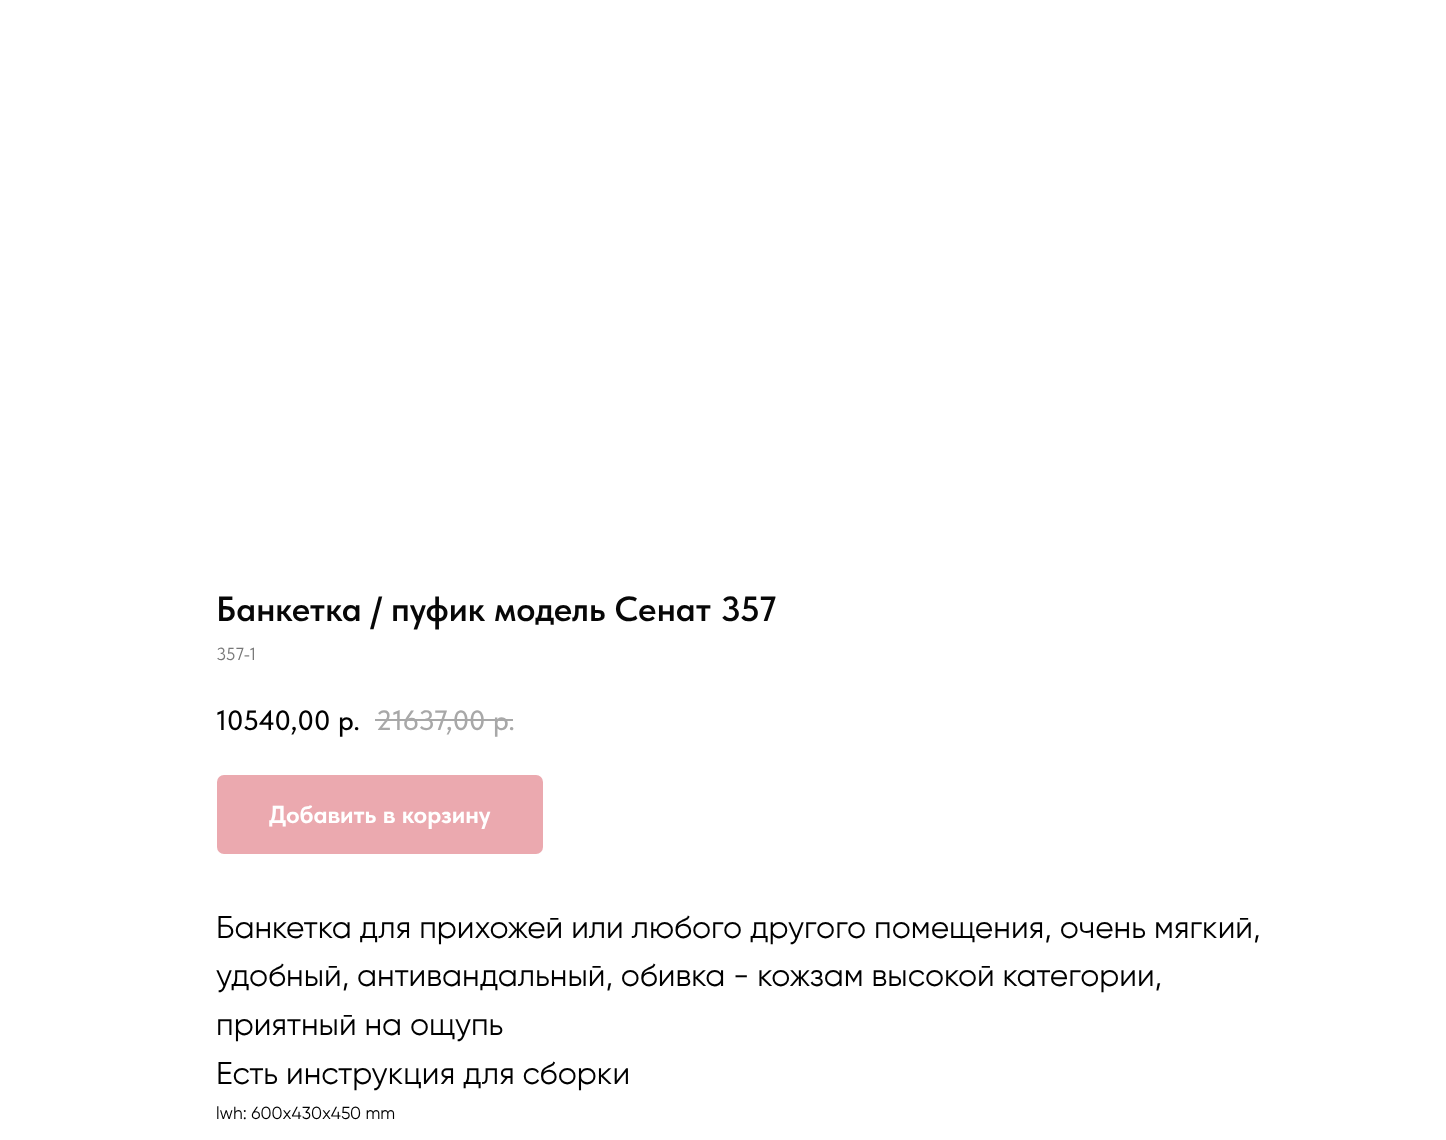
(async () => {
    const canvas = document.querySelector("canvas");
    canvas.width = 1446;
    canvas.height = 1140;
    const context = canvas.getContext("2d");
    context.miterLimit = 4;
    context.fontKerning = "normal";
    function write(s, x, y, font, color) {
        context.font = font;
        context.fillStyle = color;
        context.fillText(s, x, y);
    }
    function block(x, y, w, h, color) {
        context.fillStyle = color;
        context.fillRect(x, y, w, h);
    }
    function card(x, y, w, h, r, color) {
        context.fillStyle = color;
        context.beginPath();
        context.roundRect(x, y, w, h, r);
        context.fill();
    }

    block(0, 0, 1446, 1140, "rgb(255, 255, 255)");
    write("Банкетка / пуфик модель Сенат 357", 216, 621, "600 35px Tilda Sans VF", "rgb(7, 7, 7)");
    write("357-1", 216, 660, "17.5px Tilda Sans VF", "rgb(119, 119, 119)");
    write("10540,00", 216, 730, "500 28px Tilda Sans VF", "rgb(0, 0, 0)");
    write("р.", 338, 730, "500 28px Tilda Sans VF", "rgb(0, 0, 0)");
    write("21637,00", 376, 730, "500 28px Tilda Sans VF", "rgb(168, 168, 168)");
    write("р.", 493, 730, "500 28px Tilda Sans VF", "rgb(168, 168, 168)");
    block(375, 719, 138, 2, "rgb(168, 168, 168)");
    card(217, 775, 326, 79, 7, "rgb(235, 169, 175)");
    write("Добавить в корзину", 269, 823, "bold 24.5px Tilda Sans VF", "rgb(255, 255, 255)");
    write("Банкетка для прихожей или любого другого помещения, очень мягкий,", 216, 938, "31.5px Gilroy", "rgb(0, 0, 0)");
    write("удобный, антивандальный, обивка - кожзам высокой категории,", 216, 986, "31.5px Gilroy", "rgb(0, 0, 0)");
    write("приятный на ощупь", 216, 1035, "31.5px Gilroy", "rgb(0, 0, 0)");
    write("Есть инструкция для сборки", 216, 1084, "31.5px Gilroy", "rgb(0, 0, 0)");
    write("lwh: 600x430x450 mm", 216, 1119, "17.5px Gilroy", "rgb(0, 0, 0)");
})();
